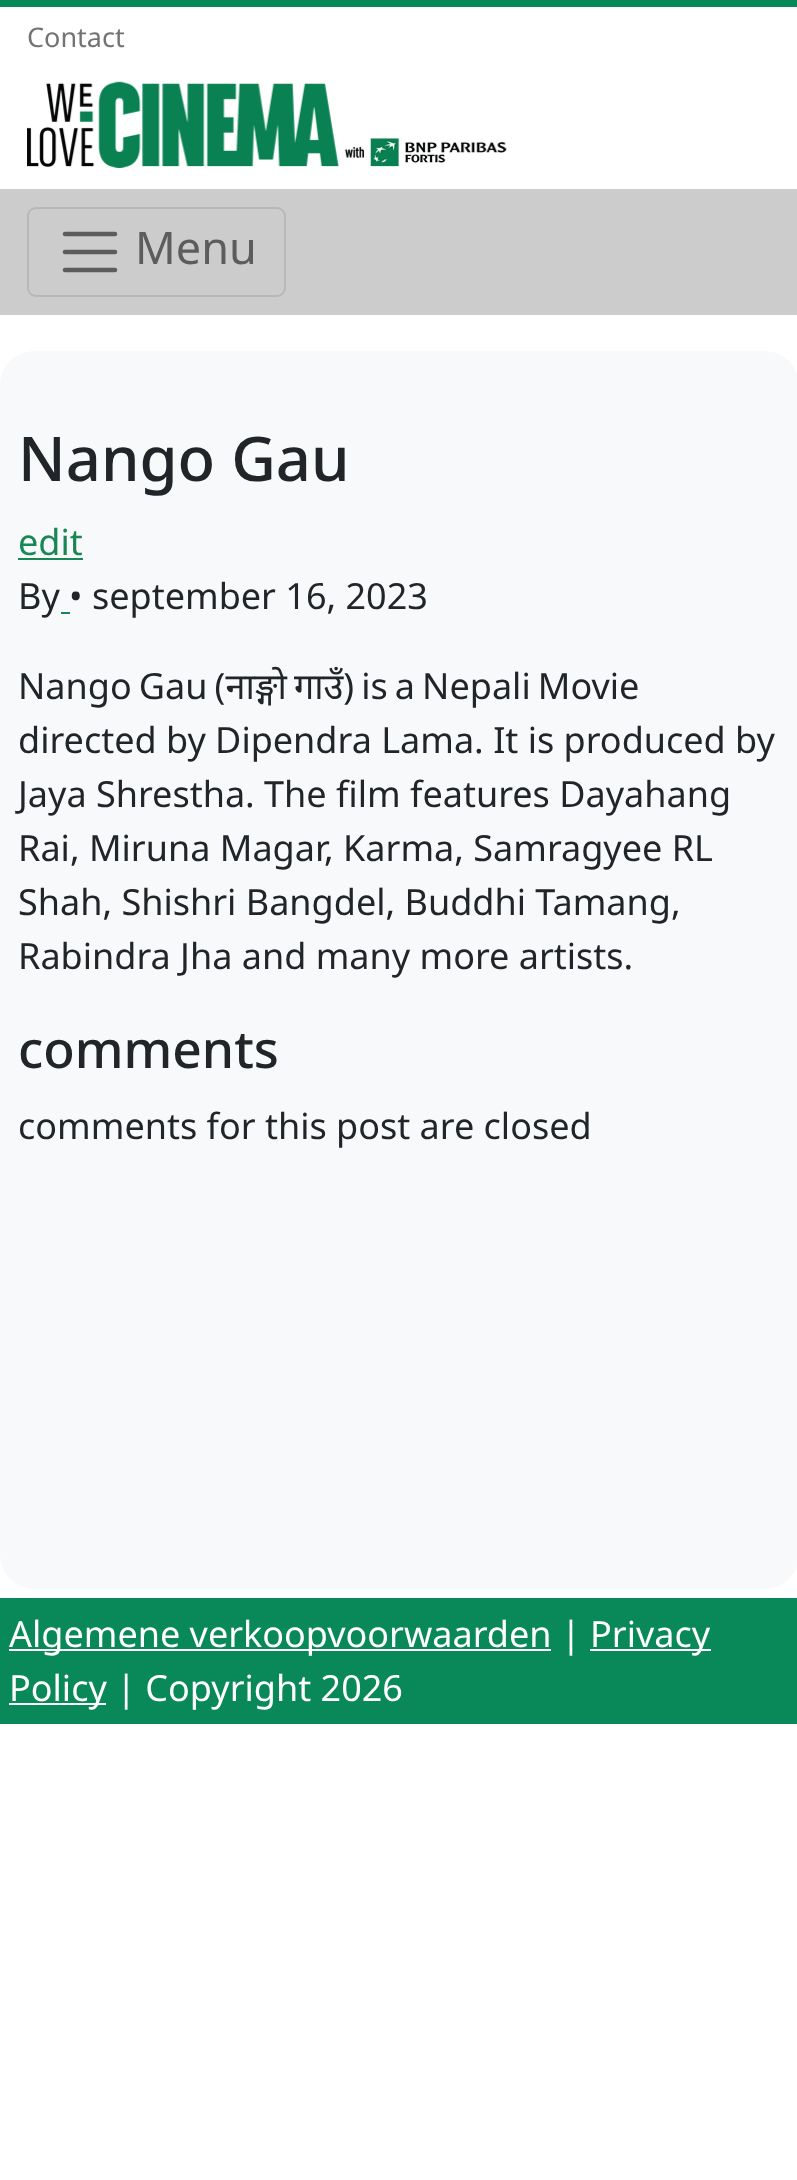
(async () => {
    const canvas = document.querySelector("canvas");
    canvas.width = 797;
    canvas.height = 2180;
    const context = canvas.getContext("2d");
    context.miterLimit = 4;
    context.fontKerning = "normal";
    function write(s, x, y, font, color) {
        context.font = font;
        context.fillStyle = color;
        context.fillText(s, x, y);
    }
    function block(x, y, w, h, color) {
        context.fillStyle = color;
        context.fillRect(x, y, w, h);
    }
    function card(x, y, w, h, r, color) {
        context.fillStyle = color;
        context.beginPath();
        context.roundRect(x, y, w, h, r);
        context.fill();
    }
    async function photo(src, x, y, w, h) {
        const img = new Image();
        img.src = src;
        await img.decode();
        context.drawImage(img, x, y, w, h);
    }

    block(0, 0, 797, 2180, "rgb(255, 255, 255)");
    block(0, 189, 797, 126, "rgb(204, 204, 204)");
    block(0, 0, 797, 7, "rgb(9, 137, 90)");
    write("Contact", 27, 47, "27px Noto Sans", "rgb(115, 115, 115)");
    await photo("media/1.png", 27, 81, 480, 87);
    context.beginPath();
    context.roundRect(28, 208, 257, 88, 8);
    context.strokeStyle = "rgb(184, 184, 184)";
    context.lineWidth = 2;
    context.stroke();
    context.beginPath();
    context.moveTo(65, 234);
    context.lineTo(115, 234);
    context.moveTo(65, 252);
    context.lineTo(115, 252);
    context.moveTo(65, 270);
    context.lineTo(115, 270);
    context.strokeStyle = "rgb(92, 92, 92)";
    context.lineWidth = 4.5;
    context.lineCap = "round";
    context.stroke();
    write("Menu", 135, 264, "45px Noto Sans", "rgb(92, 92, 92)");
    card(0, 351, 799, 1238, 34, "rgb(248, 249, 250)");
    write("Nango Gau", 18, 481, "500 61.5px Noto Sans", "rgb(33, 37, 41)");
    write("edit", 18, 555, "36px Noto Sans", "rgb(25, 135, 84)");
    block(18, 558, 65, 2, "rgb(25, 135, 84)");
    write("By • september 16, 2023", 18, 609, "36px Noto Sans", "rgb(33, 37, 41)");
    block(61, 612, 9, 2, "rgb(25, 135, 84)");
    context.wordSpacing = "-2.25px";
    write("Nango Gau (नाङ्गो गाउँ) is a Nepali Movie", 18, 699, "36px Noto Sans", "rgb(33, 37, 41)");
    context.wordSpacing = "0px";
    write("directed by Dipendra Lama. It is produced by", 18, 753, "36px Noto Sans", "rgb(33, 37, 41)");
    write("Jaya Shrestha. The film features Dayahang", 18, 807, "36px Noto Sans", "rgb(33, 37, 41)");
    write("Rai, Miruna Magar, Karma, Samragyee RL", 18, 861, "36px Noto Sans", "rgb(33, 37, 41)");
    write("Shah, Shishri Bangdel, Buddhi Tamang,", 18, 915, "36px Noto Sans", "rgb(33, 37, 41)");
    write("Rabindra Jha and many more artists.", 18, 969, "36px Noto Sans", "rgb(33, 37, 41)");
    write("comments", 18, 1068, "500 51.5px Noto Sans", "rgb(33, 37, 41)");
    write("comments for this post are closed", 18, 1139, "36px Noto Sans", "rgb(33, 37, 41)");
    block(0, 1598, 797, 126, "rgb(9, 137, 90)");
    block(9, 1649, 542, 2, "rgb(255, 255, 255)");
    write("Algemene verkoopvoorwaarden |", 9, 1647, "36px Noto Sans", "rgb(255, 255, 255)");
    block(590, 1649, 121, 2, "rgb(255, 255, 255)");
    write("Privacy", 590, 1647, "36px Noto Sans", "rgb(255, 255, 255)");
    block(9, 1703, 97, 2, "rgb(255, 255, 255)");
    write("Policy | Copyright 2026", 9, 1701, "36px Noto Sans", "rgb(255, 255, 255)");
})();
